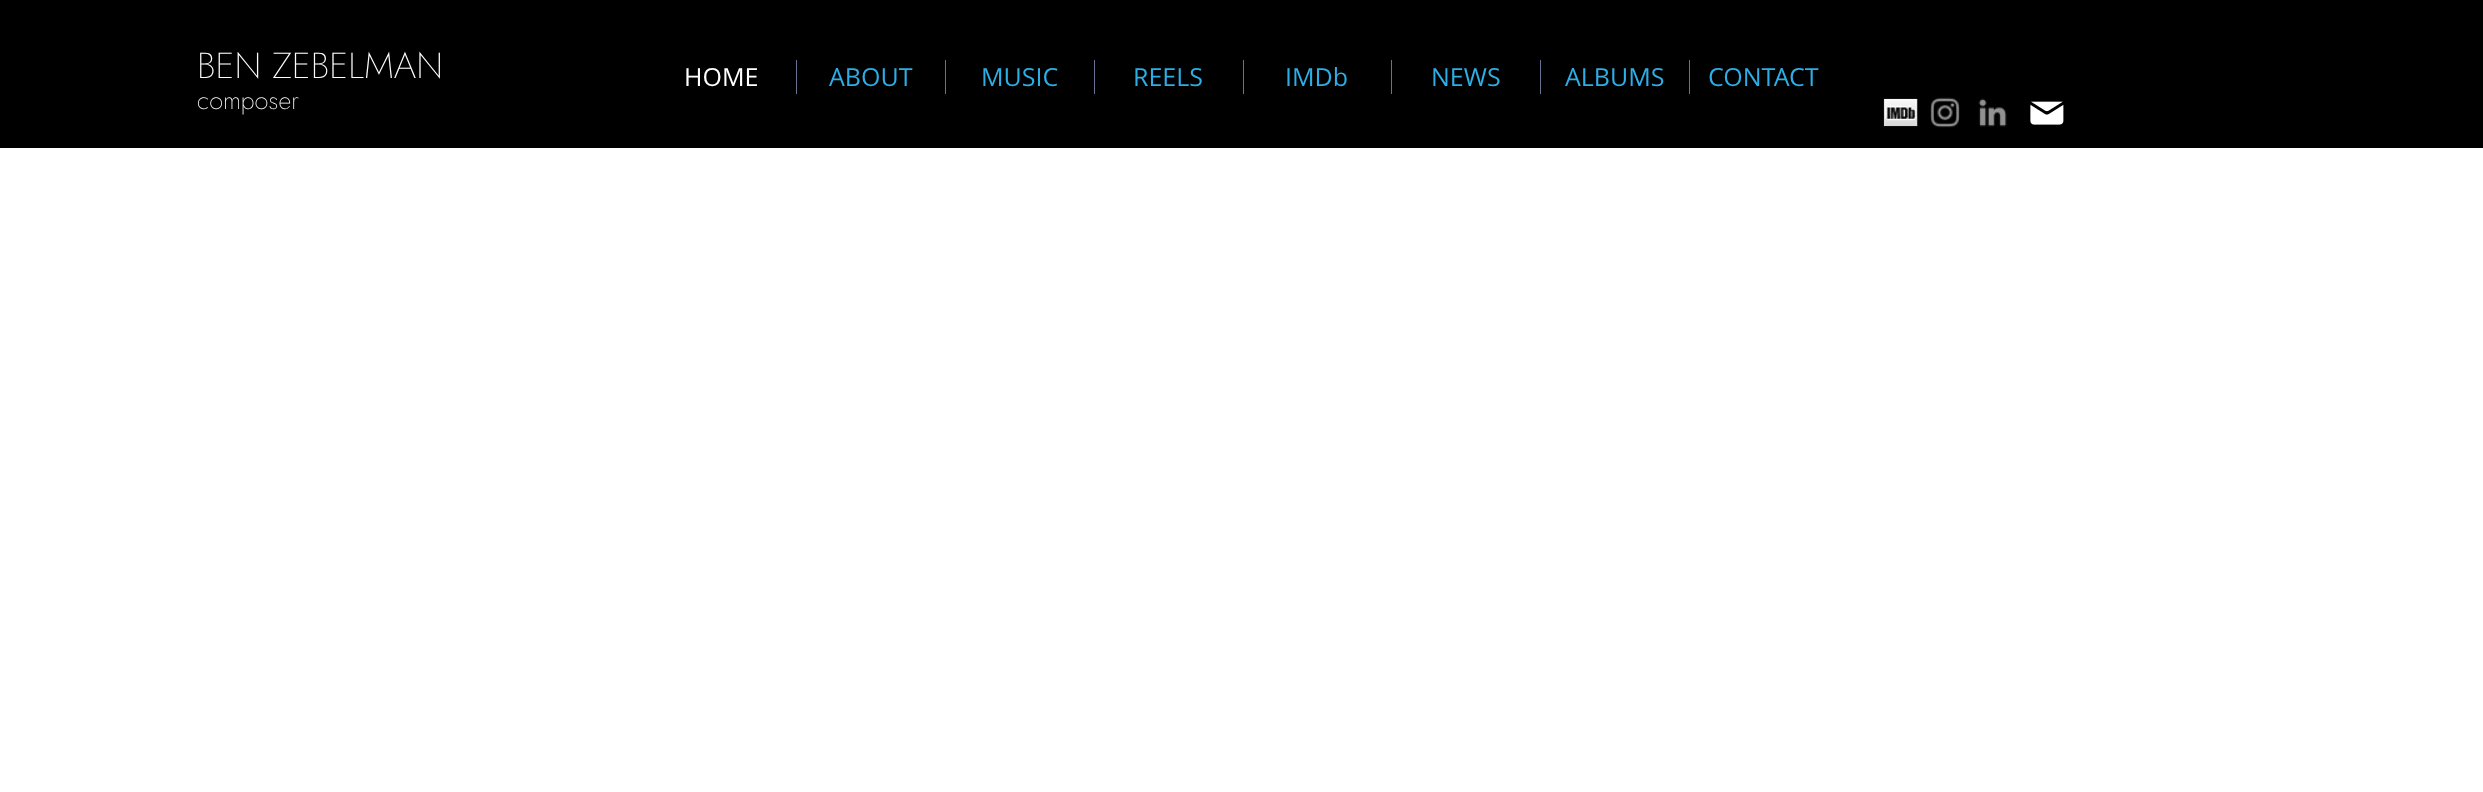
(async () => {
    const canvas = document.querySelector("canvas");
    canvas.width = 2483;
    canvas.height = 792;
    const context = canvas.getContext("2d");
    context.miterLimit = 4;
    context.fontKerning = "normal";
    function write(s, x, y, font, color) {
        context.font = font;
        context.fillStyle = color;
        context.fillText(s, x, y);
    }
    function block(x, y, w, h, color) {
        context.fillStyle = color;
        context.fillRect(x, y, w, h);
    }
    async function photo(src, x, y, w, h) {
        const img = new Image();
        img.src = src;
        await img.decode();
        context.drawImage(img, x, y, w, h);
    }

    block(0, 0, 2483, 792, "rgb(255, 255, 255)");
    block(0, 0, 2483, 148, "rgb(0, 0, 0)");
    write("BEN ZEBELMAN", 197, 78, "200 36.25px Jost", "rgb(255, 255, 255)");
    write("composer", 197, 109, "200 25px Jost", "rgb(255, 255, 255)");
    write("HOME", 684, 86, "25px Open Sans", "rgb(255, 255, 255)");
    block(796, 60, 1, 34, "rgb(104, 115, 147)");
    write("ABOUT", 829, 86, "25px Open Sans", "rgb(44, 174, 230)");
    block(945, 60, 1, 34, "rgb(104, 115, 147)");
    write("MUSIC", 981, 86, "25px Open Sans", "rgb(44, 174, 230)");
    block(1094, 60, 1, 34, "rgb(104, 115, 147)");
    write("REELS", 1133, 86, "25px Open Sans", "rgb(44, 174, 230)");
    block(1243, 60, 1, 34, "rgb(104, 115, 147)");
    write("IMDb", 1285, 86, "25px Open Sans", "rgb(44, 174, 230)");
    block(1391, 60, 1, 34, "rgb(104, 115, 147)");
    write("NEWS", 1431, 86, "25px Open Sans", "rgb(44, 174, 230)");
    block(1540, 60, 1, 34, "rgb(104, 115, 147)");
    write("ALBUMS", 1565, 86, "25px Open Sans", "rgb(44, 174, 230)");
    block(1689, 60, 1, 34, "rgb(104, 115, 147)");
    write("CONTACT", 1708, 86, "25px Open Sans", "rgb(44, 174, 230)");
    await photo("media/1.png", 1883, 98, 35, 29);
    await photo("media/2.png", 1930, 97, 30, 31);
    await photo("media/3.png", 1978, 98, 29, 29);
    await photo("media/4.png", 2030, 101, 34, 24);
})();
